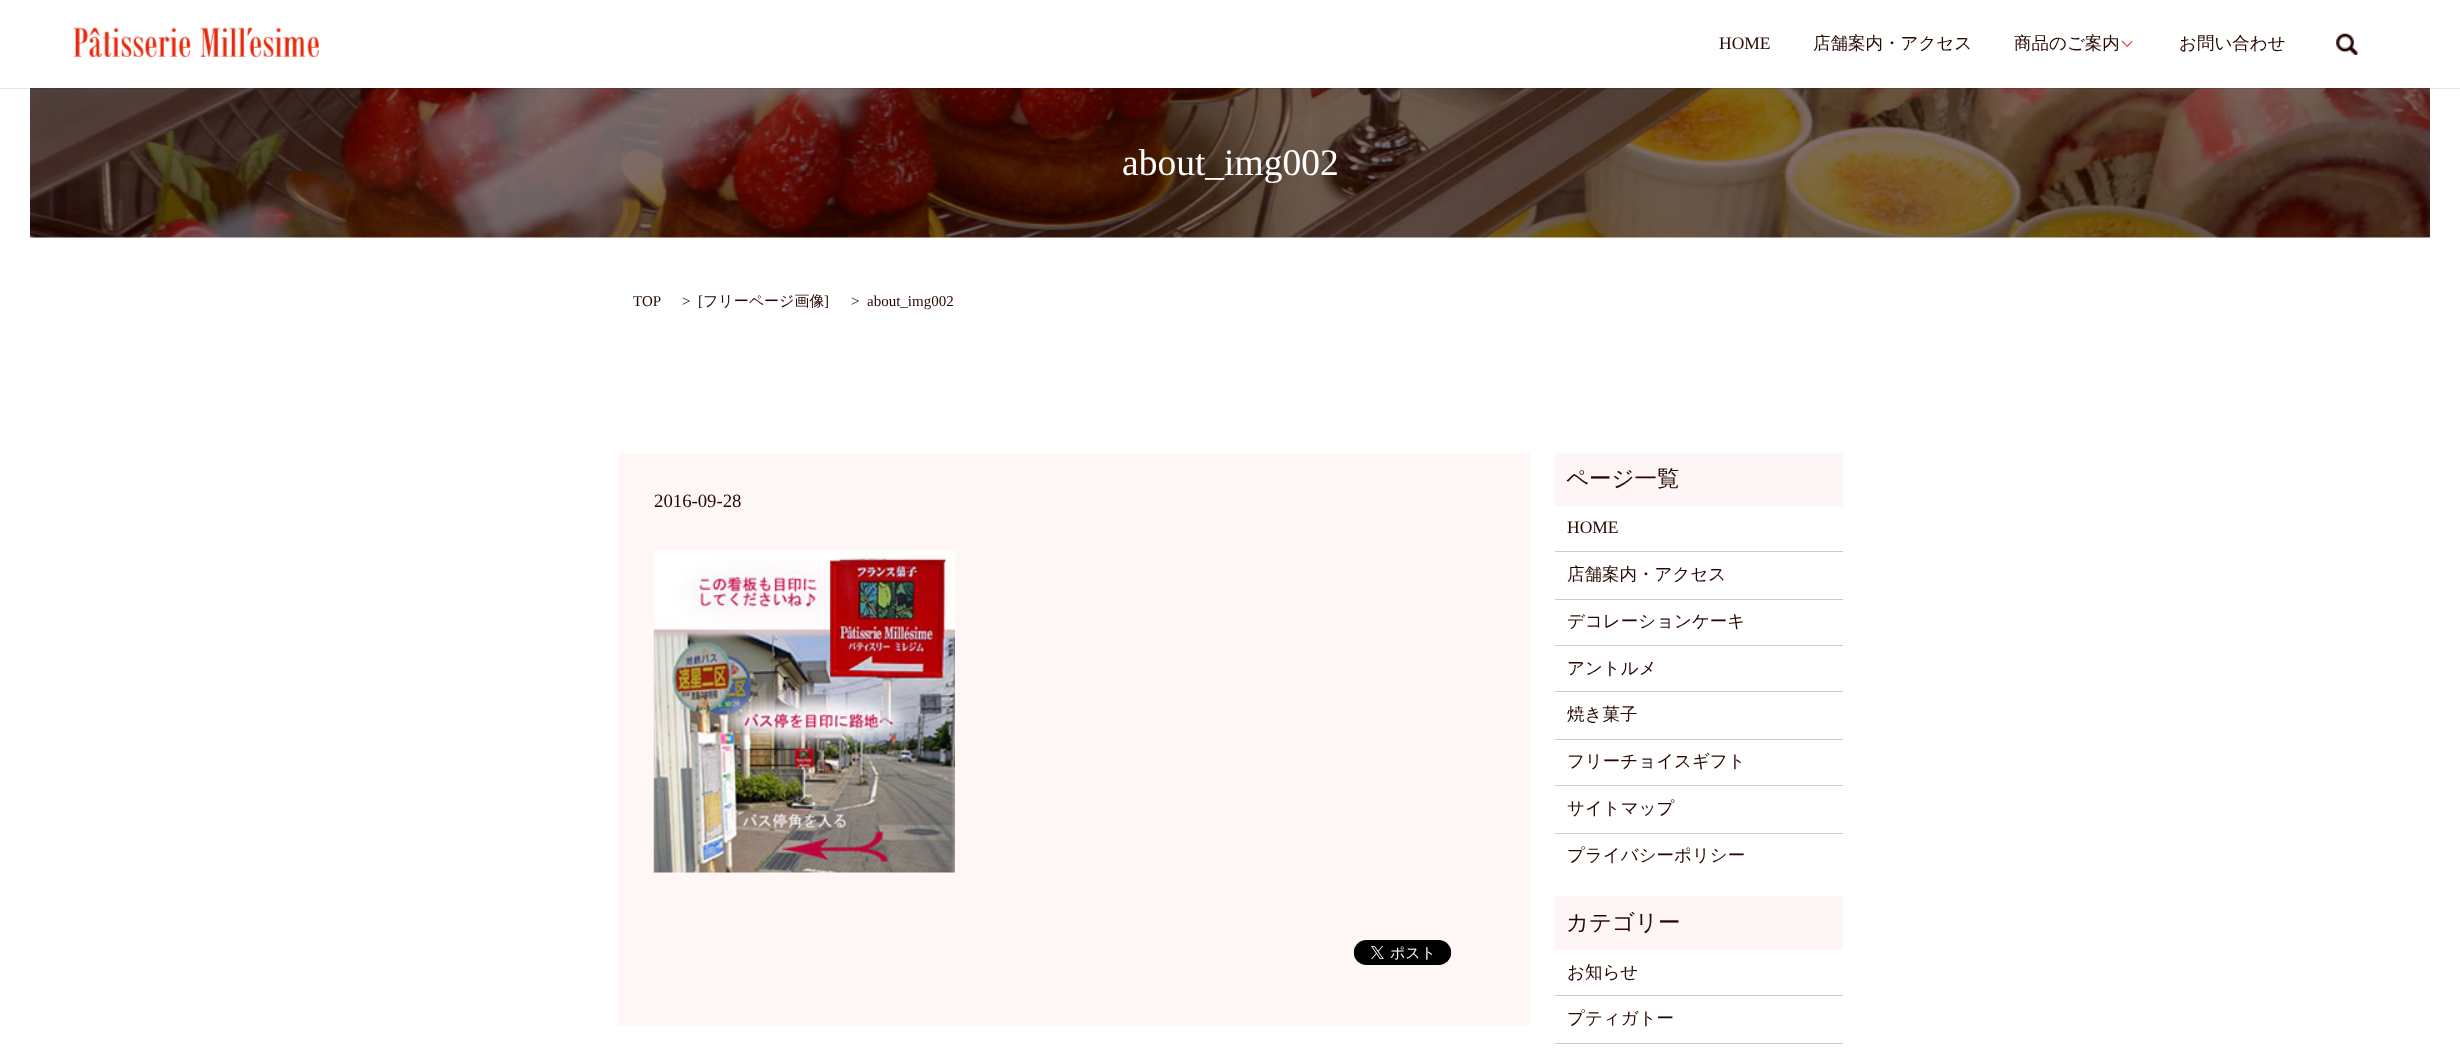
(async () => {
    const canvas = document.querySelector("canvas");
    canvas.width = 2460;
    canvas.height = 1060;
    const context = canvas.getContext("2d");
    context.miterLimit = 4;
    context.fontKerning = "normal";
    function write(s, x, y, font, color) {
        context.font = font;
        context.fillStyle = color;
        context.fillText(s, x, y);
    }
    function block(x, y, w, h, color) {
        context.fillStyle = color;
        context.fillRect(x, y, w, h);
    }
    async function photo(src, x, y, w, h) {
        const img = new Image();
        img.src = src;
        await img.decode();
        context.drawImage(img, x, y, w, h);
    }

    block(0, 0, 2460, 1060, "rgb(255, 255, 255)");
    await photo("media/3.png", 30, 88, 2400, 150);
    context.fillStyle = "rgba(0, 0, 0, 0.1)";
    context.filter = "blur(0.5px)";
    context.beginPath();
    context.rect(0, 1, 2460, 88);
    context.fill();
    context.filter = "none";
    block(0, 0, 2460, 88, "rgb(255, 255, 255)");
    await photo("media/1.png", 73, 27, 246, 31);
    write("HOME", 1719, 49, "17.5px Liberation Serif", "rgb(39, 7, 0)");
    write("店舗案内・アクセス", 1813, 49, "500 17.5px WenQuanYi Zen Hei", "rgb(39, 7, 0)");
    write("商品のご案内", 2014, 49, "500 17.5px WenQuanYi Zen Hei", "rgb(39, 7, 0)");
    context.fillStyle = "rgb(227, 74, 67)";
    context.beginPath();
    context.moveTo(2126.5, 46);
    context.lineTo(2132, 40.5);
    context.lineTo(2132.5, 41.5);
    context.lineTo(2127.5, 47);
    context.closePath();
    context.fill();
    context.beginPath();
    context.moveTo(2122.5, 40.5);
    context.lineTo(2127.5, 46);
    context.lineTo(2127, 47);
    context.lineTo(2121.5, 41.5);
    context.closePath();
    context.fill();
    write("お問い合わせ", 2179, 49, "500 17.5px WenQuanYi Zen Hei", "rgb(39, 7, 0)");
    await photo("media/2.png", 2336, 33, 22, 22);
    write("about_img002", 1122, 175, "37.5px Liberation Serif", "rgb(255, 255, 255)");
    write("TOP", 633, 306, "15px Liberation Serif", "rgb(39, 7, 0)");
    write(">", 682, 306, "15px Liberation Serif", "rgb(39, 7, 0)");
    write("[", 698, 306, "15px Liberation Serif", "rgb(39, 7, 0)");
    write("フリーページ画像", 703, 306, "500 15px WenQuanYi Zen Hei", "rgb(39, 7, 0)");
    write("]", 824, 306, "15px Liberation Serif", "rgb(39, 7, 0)");
    write(">", 851, 306, "15px Liberation Serif", "rgb(39, 7, 0)");
    write("about_img002", 867, 306, "15px Liberation Serif", "rgb(39, 7, 0)");
    block(618, 453, 912, 573, "rgb(254, 247, 246)");
    write("2016-09-28", 654, 507, "18.75px Liberation Serif", "rgb(39, 7, 0)");
    await photo("media/4.png", 653, 550, 302, 323);
    await photo("media/5.png", 1353, 940, 99, 25);
    block(1555, 453, 288, 53, "rgb(254, 246, 246)");
    write("ページ一覧", 1566, 486, "500 22.5px WenQuanYi Zen Hei", "rgb(39, 7, 0)");
    block(1555, 551, 288, 1, "rgb(204, 204, 204)");
    write("HOME", 1567, 533, "17.5px Liberation Serif", "rgb(39, 7, 0)");
    block(1555, 599, 288, 1, "rgb(204, 204, 204)");
    write("店舗案内・アクセス", 1567, 580, "500 17.5px WenQuanYi Zen Hei", "rgb(39, 7, 0)");
    block(1555, 645, 288, 1, "rgb(204, 204, 204)");
    write("デコレーションケーキ", 1567, 627, "500 17.5px WenQuanYi Zen Hei", "rgb(39, 7, 0)");
    block(1555, 691, 288, 1, "rgb(204, 204, 204)");
    write("アントルメ", 1567, 674, "500 17.5px WenQuanYi Zen Hei", "rgb(39, 7, 0)");
    block(1555, 739, 288, 1, "rgb(204, 204, 204)");
    write("焼き菓子", 1567, 720, "500 17.5px WenQuanYi Zen Hei", "rgb(39, 7, 0)");
    block(1555, 785, 288, 1, "rgb(204, 204, 204)");
    write("フリーチョイスギフト", 1567, 767, "500 17.5px WenQuanYi Zen Hei", "rgb(39, 7, 0)");
    block(1555, 833, 288, 1, "rgb(204, 204, 204)");
    write("サイトマップ", 1567, 814, "500 17.5px WenQuanYi Zen Hei", "rgb(39, 7, 0)");
    write("プライバシーポリシー", 1567, 861, "500 17.5px WenQuanYi Zen Hei", "rgb(39, 7, 0)");
    block(1555, 896, 288, 54, "rgb(254, 246, 246)");
    write("カテゴリー", 1566, 930, "500 22.5px WenQuanYi Zen Hei", "rgb(39, 7, 0)");
    block(1555, 995, 288, 1, "rgb(204, 204, 204)");
    write("お知らせ", 1567, 978, "500 17.5px WenQuanYi Zen Hei", "rgb(39, 7, 0)");
    block(1555, 1043, 288, 1, "rgb(204, 204, 204)");
    write("プティガトー", 1567, 1024, "500 17.5px WenQuanYi Zen Hei", "rgb(39, 7, 0)");
})();
